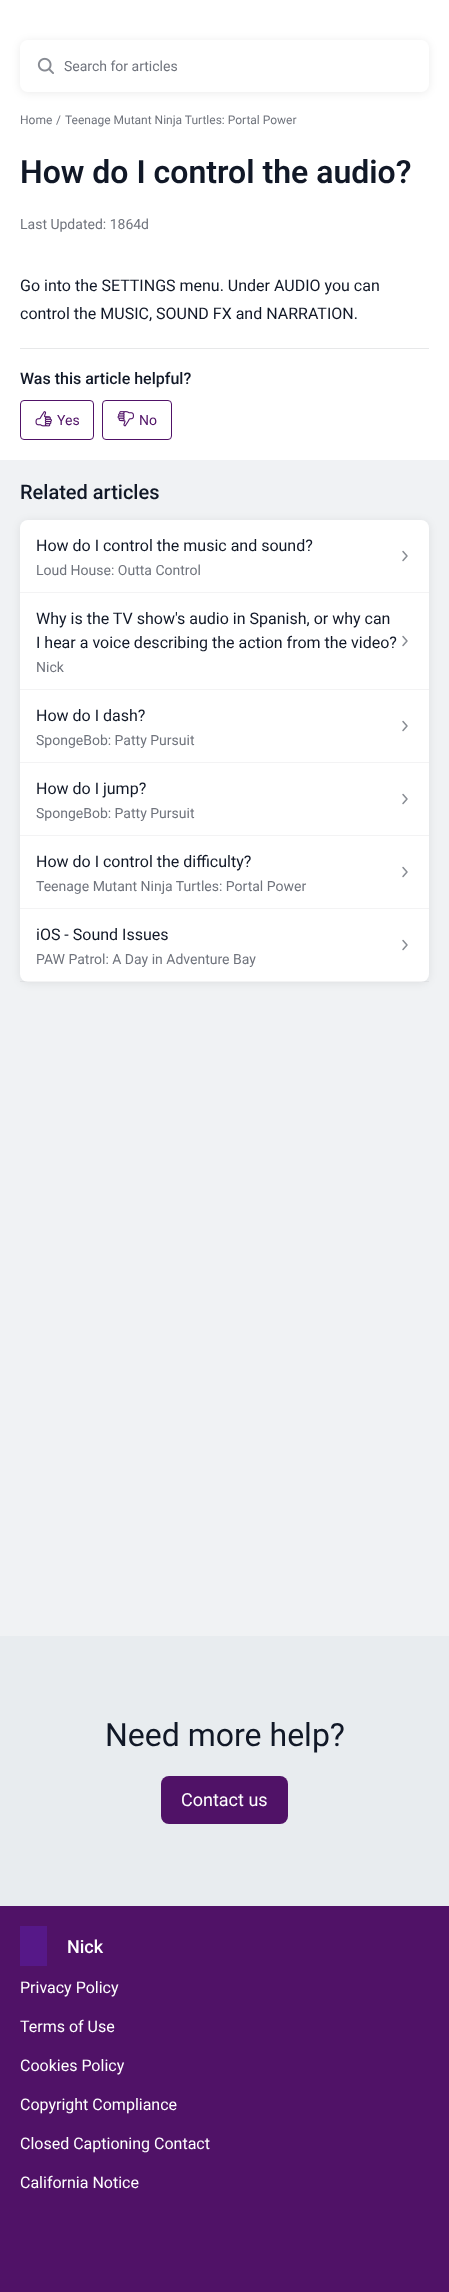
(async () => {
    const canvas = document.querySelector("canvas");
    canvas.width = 449;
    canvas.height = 2292;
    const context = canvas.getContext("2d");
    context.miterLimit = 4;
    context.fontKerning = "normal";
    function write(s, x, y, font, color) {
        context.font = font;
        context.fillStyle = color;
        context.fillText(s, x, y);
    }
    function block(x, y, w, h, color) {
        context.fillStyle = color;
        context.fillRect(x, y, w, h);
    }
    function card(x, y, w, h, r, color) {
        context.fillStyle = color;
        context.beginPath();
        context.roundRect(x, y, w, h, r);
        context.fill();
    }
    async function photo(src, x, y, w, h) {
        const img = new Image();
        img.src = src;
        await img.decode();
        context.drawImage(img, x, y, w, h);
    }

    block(0, 0, 449, 2292, "rgb(240, 242, 244)");
    block(0, 0, 449, 460, "rgb(255, 255, 255)");
    context.fillStyle = "rgba(0, 0, 0, 0.08)";
    context.filter = "blur(4px)";
    context.beginPath();
    context.roundRect(20, 41, 409, 52, 8);
    context.fill();
    context.filter = "none";
    card(20, 40, 409, 52, 8, "rgb(255, 255, 255)");
    await photo("media/1.png", 37, 57, 17, 17);
    write("Search for articles", 64, 71, "14px Roboto", "rgb(112, 116, 125)");
    write("Home", 20, 124, "12px Roboto", "rgb(112, 116, 125)");
    write("/", 56, 124, "12px Roboto", "rgb(112, 116, 125)");
    write("Teenage Mutant Ninja Turtles: Portal Power", 65, 124, "12px Roboto", "rgb(112, 116, 125)");
    write("How do I control the audio?", 20, 183, "600 32px Roboto", "rgb(17, 24, 39)");
    write("Last Updated: 1864d", 20, 229, "14px Roboto", "rgb(112, 116, 125)");
    block(20, 348, 409, 1, "rgb(231, 232, 233)");
    write("Go into the SETTINGS menu. Under AUDIO you can", 20, 291, "16px Roboto", "rgb(17, 24, 39)");
    write("control the MUSIC, SOUND FX and NARRATION.", 20, 319, "16px Roboto", "rgb(17, 24, 39)");
    write("Was this article helpful?", 20, 384, "500 16px Roboto", "rgb(17, 24, 39)");
    context.beginPath();
    context.roundRect(20.5, 400.5, 73, 39, 3.5);
    context.strokeStyle = "rgb(80, 18, 103)";
    context.stroke();
    await photo("media/2.png", 35, 411, 17, 16);
    write("Yes", 57, 425, "14px Roboto", "rgb(80, 18, 103)");
    context.beginPath();
    context.roundRect(102.5, 400.5, 69, 39, 3.5);
    context.stroke();
    await photo("media/3.png", 117, 411, 17, 16);
    write("No", 139, 425, "14px Roboto", "rgb(80, 18, 103)");
    write("Related articles", 20, 499, "500 20px Roboto", "rgb(17, 24, 39)");
    context.fillStyle = "rgba(0, 0, 0, 0.08)";
    context.filter = "blur(4px)";
    context.beginPath();
    context.roundRect(20, 521, 409, 462, 8);
    context.fill();
    context.filter = "none";
    card(20, 520, 409, 462, 8, "rgb(255, 255, 255)");
    block(20, 592, 409, 1, "rgb(243, 243, 244)");
    write("How do I control the music and sound?", 36, 551, "16px Roboto", "rgb(17, 24, 39)");
    write("Loud House: Outta Control", 36, 575, "14px Roboto", "rgb(112, 116, 125)");
    context.beginPath();
    context.moveTo(403, 551.5);
    context.lineTo(407, 556);
    context.lineTo(403, 560.5);
    context.strokeStyle = "rgb(136, 140, 147)";
    context.lineWidth = 1.5;
    context.lineCap = "round";
    context.lineJoin = "round";
    context.stroke();
    block(20, 689, 409, 1, "rgb(243, 243, 244)");
    write("Why is the TV show's audio in Spanish, or why can", 36, 624, "16px Roboto", "rgb(17, 24, 39)");
    write("I hear a voice describing the action from the video?", 36, 648, "16px Roboto", "rgb(17, 24, 39)");
    write("Nick", 36, 672, "14px Roboto", "rgb(112, 116, 125)");
    context.beginPath();
    context.moveTo(403, 636.5);
    context.lineTo(407, 641);
    context.lineTo(403, 645.5);
    context.stroke();
    block(20, 762, 409, 1, "rgb(243, 243, 244)");
    write("How do I dash?", 36, 721, "16px Roboto", "rgb(17, 24, 39)");
    write("SpongeBob: Patty Pursuit", 36, 745, "14px Roboto", "rgb(112, 116, 125)");
    context.beginPath();
    context.moveTo(403, 721.5);
    context.lineTo(407, 726);
    context.lineTo(403, 730.5);
    context.stroke();
    block(20, 835, 409, 1, "rgb(243, 243, 244)");
    write("How do I jump?", 36, 794, "16px Roboto", "rgb(17, 24, 39)");
    write("SpongeBob: Patty Pursuit", 36, 818, "14px Roboto", "rgb(112, 116, 125)");
    context.beginPath();
    context.moveTo(403, 794.5);
    context.lineTo(407, 799);
    context.lineTo(403, 803.5);
    context.stroke();
    block(20, 908, 409, 1, "rgb(243, 243, 244)");
    write("How do I control the difficulty?", 36, 867, "16px Roboto", "rgb(17, 24, 39)");
    write("Teenage Mutant Ninja Turtles: Portal Power", 36, 891, "14px Roboto", "rgb(112, 116, 125)");
    context.beginPath();
    context.moveTo(403, 867.5);
    context.lineTo(407, 872);
    context.lineTo(403, 876.5);
    context.stroke();
    block(20, 981, 409, 1, "rgba(17, 24, 39, 0.05)");
    write("iOS - Sound Issues", 36, 940, "16px Roboto", "rgb(17, 24, 39)");
    write("PAW Patrol: A Day in Adventure Bay", 36, 964, "14px Roboto", "rgb(112, 116, 125)");
    context.beginPath();
    context.moveTo(403, 940.5);
    context.lineTo(407, 945);
    context.lineTo(403, 949.5);
    context.stroke();
    block(0, 1636, 449, 270, "rgb(232, 236, 239)");
    write("Need more help?", 105, 1746, "32px Roboto", "rgb(17, 24, 39)");
    card(161, 1776, 127, 48, 8, "rgb(80, 18, 103)");
    write("Contact us", 181, 1806, "18px Roboto", "rgb(255, 255, 255)");
    block(0, 1906, 449, 386, "rgb(80, 18, 103)");
    block(20, 1926, 27, 40, "rgb(86, 24, 136)");
    write("Nick", 67, 1953, "500 18px Roboto", "rgb(255, 255, 255)");
    write("Privacy Policy", 20, 1993, "16px Roboto", "rgb(255, 255, 255)");
    write("Terms of Use", 20, 2032, "16px Roboto", "rgb(255, 255, 255)");
    write("Cookies Policy", 20, 2071, "16px Roboto", "rgb(255, 255, 255)");
    write("Copyright Compliance", 20, 2110, "16px Roboto", "rgb(255, 255, 255)");
    write("Closed Captioning Contact", 20, 2149, "16px Roboto", "rgb(255, 255, 255)");
    write("California Notice", 20, 2188, "16px Roboto", "rgb(255, 255, 255)");
})();
